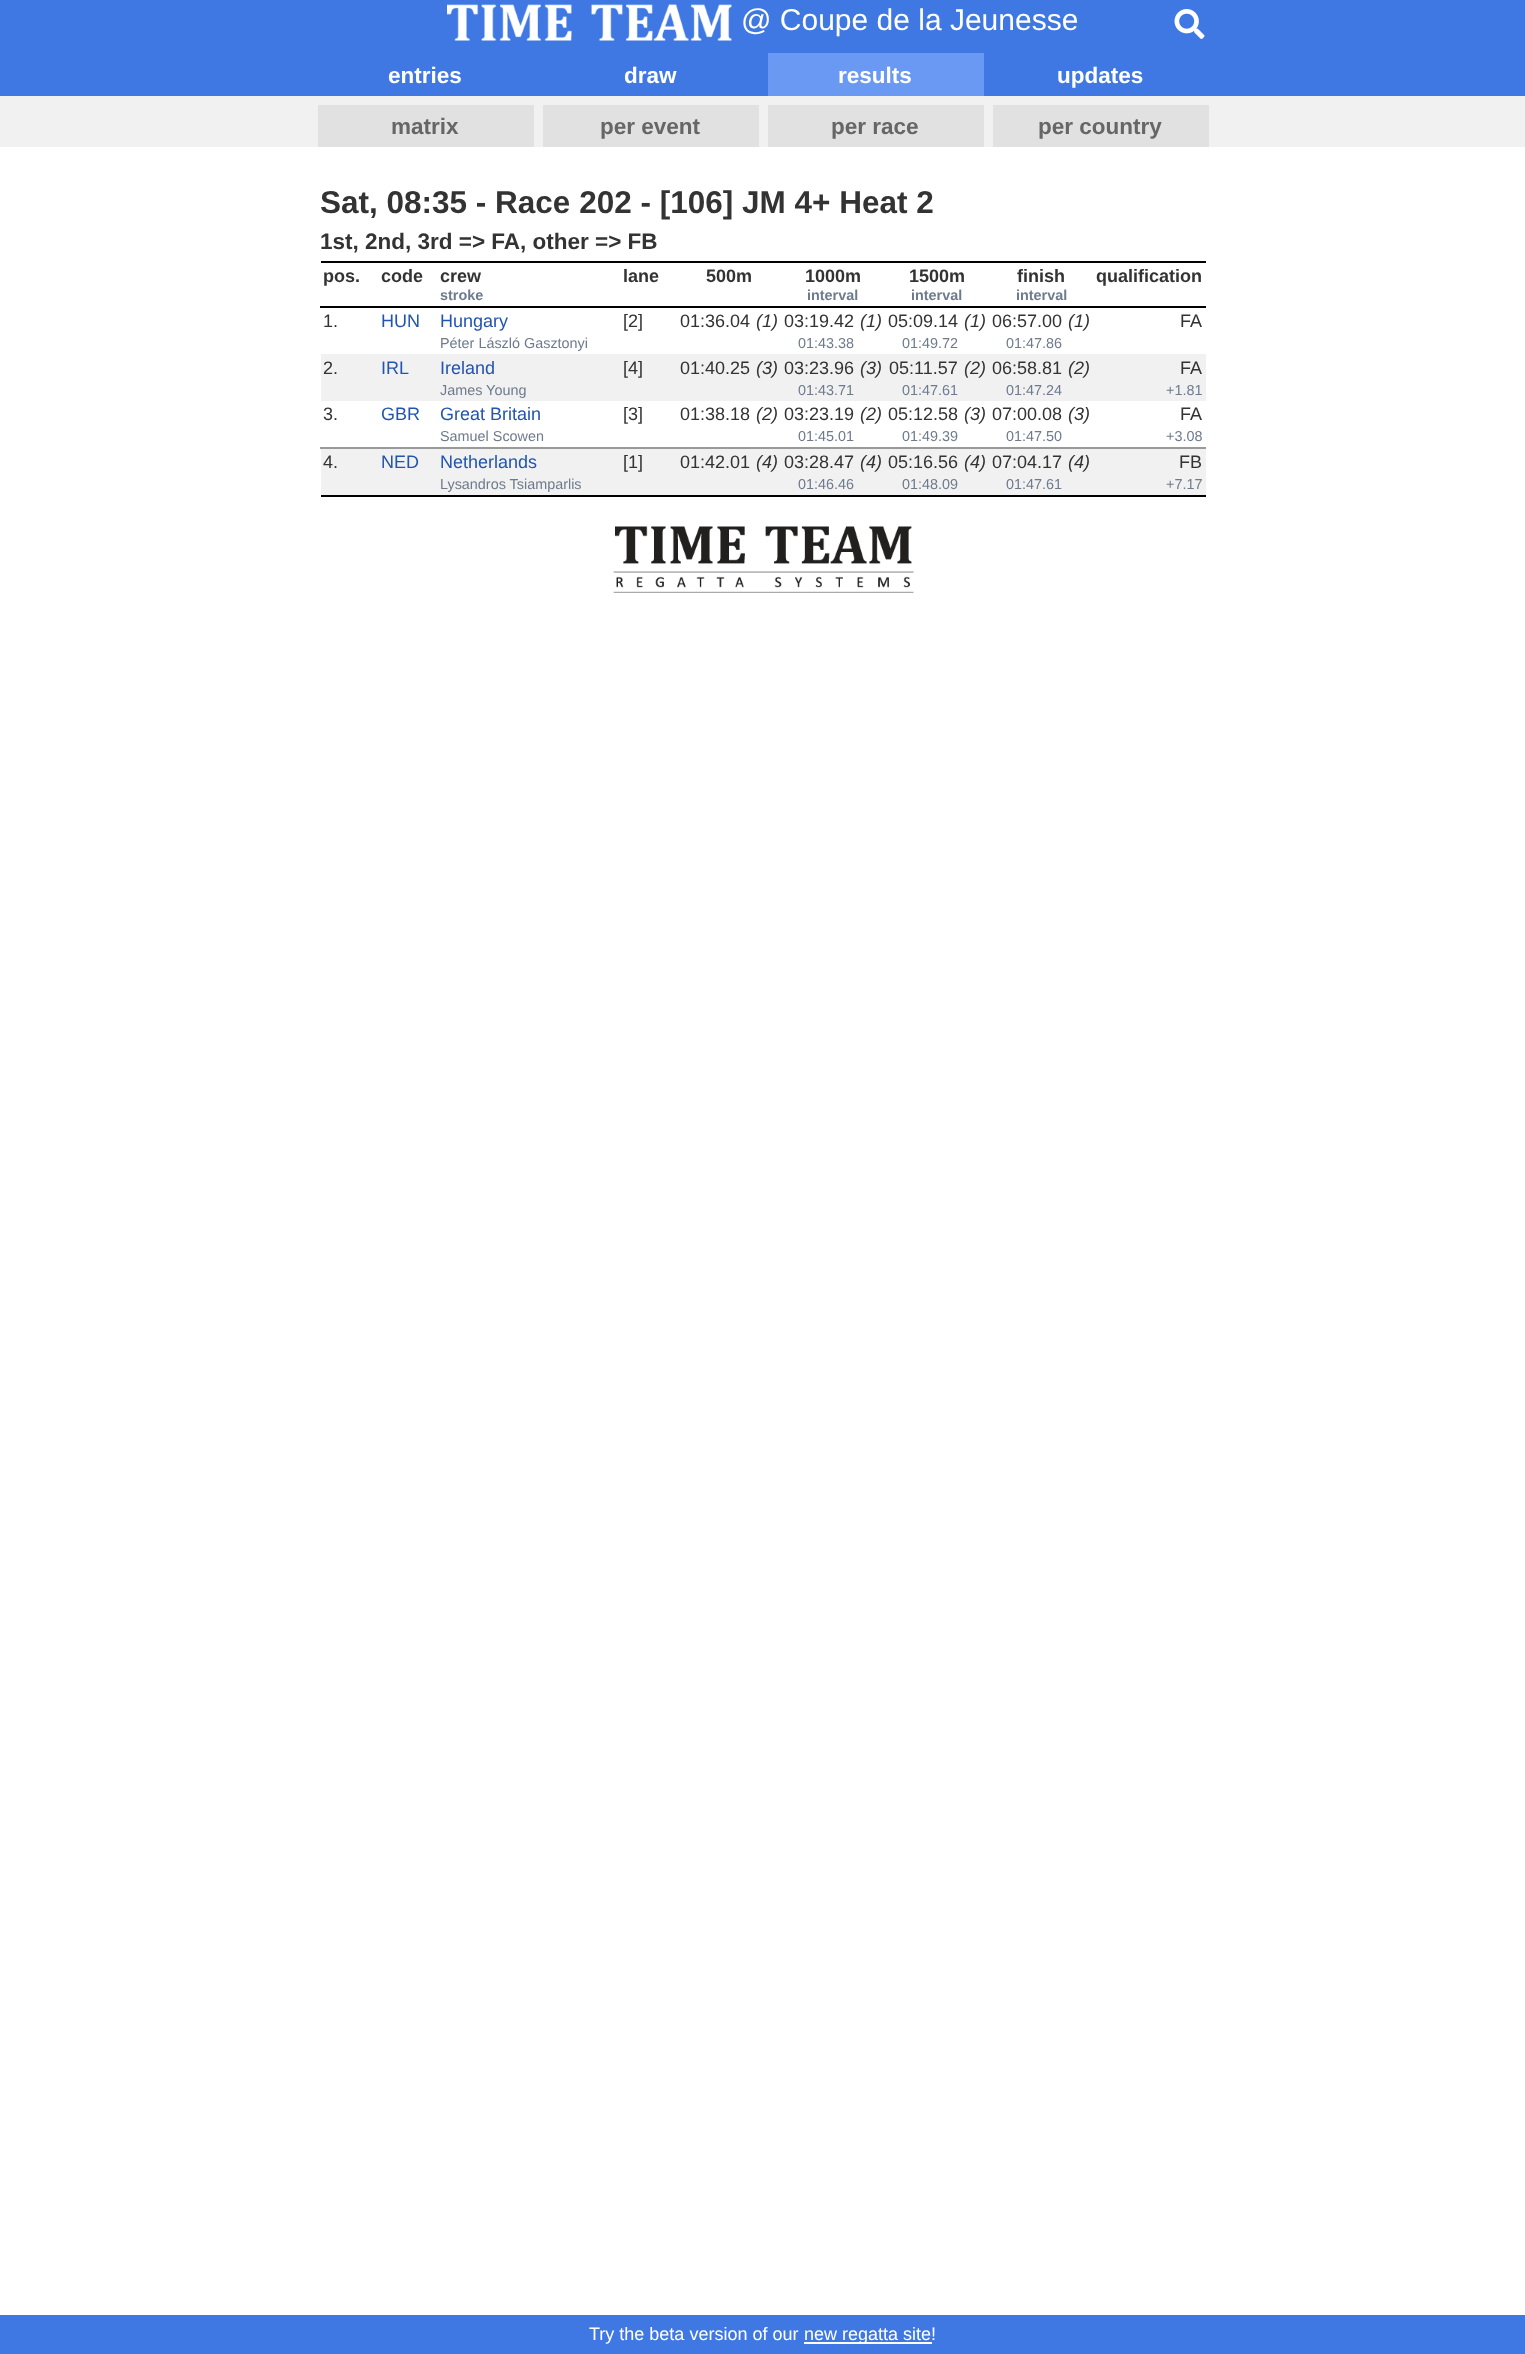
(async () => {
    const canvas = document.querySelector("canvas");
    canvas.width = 1525;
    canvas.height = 2354;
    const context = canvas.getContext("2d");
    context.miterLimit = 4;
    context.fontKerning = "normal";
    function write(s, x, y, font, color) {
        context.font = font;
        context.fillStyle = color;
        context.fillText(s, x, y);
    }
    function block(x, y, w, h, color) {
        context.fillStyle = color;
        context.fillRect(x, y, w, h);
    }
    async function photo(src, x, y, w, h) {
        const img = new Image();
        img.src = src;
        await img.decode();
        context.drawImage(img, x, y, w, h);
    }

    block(0, 0, 1525, 2354, "rgb(255, 255, 255)");
    block(0, 0, 1525, 96, "rgb(63, 120, 227)");
    await photo("media/1.png", 447, 4, 285, 37);
    write("@ Coupe de la Jeunesse", 741, 30, "30px Liberation Sans", "rgb(255, 255, 255)");
    await photo("media/2.png", 1174, 9, 31, 30);
    write("entries", 388, 83, "bold 22.5px Liberation Sans", "rgb(255, 255, 255)");
    write("draw", 624, 83, "bold 22.5px Liberation Sans", "rgb(255, 255, 255)");
    block(768, 53, 216, 43, "rgb(106, 153, 243)");
    write("results", 838, 83, "bold 22.5px Liberation Sans", "rgb(255, 255, 255)");
    write("updates", 1057, 83, "bold 22.5px Liberation Sans", "rgb(255, 255, 255)");
    block(0, 96, 1525, 51, "rgb(241, 241, 241)");
    block(318, 105, 216, 42, "rgb(225, 225, 225)");
    write("matrix", 391, 134, "bold 22.5px Liberation Sans", "rgb(102, 102, 102)");
    block(543, 105, 216, 42, "rgb(225, 225, 225)");
    write("per event", 600, 134, "bold 22.5px Liberation Sans", "rgb(102, 102, 102)");
    block(768, 105, 216, 42, "rgb(225, 225, 225)");
    write("per race", 831, 134, "bold 22.5px Liberation Sans", "rgb(102, 102, 102)");
    block(993, 105, 216, 42, "rgb(225, 225, 225)");
    write("per country", 1038, 134, "bold 22.5px Liberation Sans", "rgb(102, 102, 102)");
    write("Sat, 08:35 - Race 202 - [106] JM 4+ Heat 2", 320, 213, "bold 31.5px Liberation Sans", "rgb(51, 51, 51)");
    write("1st, 2nd, 3rd => FA, other => FB", 320, 249, "bold 22.5px Liberation Sans", "rgb(51, 51, 51)");
    block(321, 261, 885, 2, "rgb(0, 0, 0)");
    block(321, 495, 885, 2, "rgb(0, 0, 0)");
    write("pos.", 323, 282, "bold 18px Liberation Sans", "rgb(51, 51, 51)");
    write("code", 381, 282, "bold 18px Liberation Sans", "rgb(51, 51, 51)");
    write("crew", 440, 282, "bold 18px Liberation Sans", "rgb(51, 51, 51)");
    write("stroke", 440, 300, "bold 14.4px Liberation Sans", "rgb(109, 123, 141)");
    write("lane", 623, 282, "bold 18px Liberation Sans", "rgb(51, 51, 51)");
    write("500m", 706, 282, "bold 18px Liberation Sans", "rgb(51, 51, 51)");
    write("1000m", 805, 282, "bold 18px Liberation Sans", "rgb(51, 51, 51)");
    write("interval", 807, 300, "bold 14.4px Liberation Sans", "rgb(109, 123, 141)");
    write("1500m", 909, 282, "bold 18px Liberation Sans", "rgb(51, 51, 51)");
    write("interval", 911, 300, "bold 14.4px Liberation Sans", "rgb(109, 123, 141)");
    write("finish", 1017, 282, "bold 18px Liberation Sans", "rgb(51, 51, 51)");
    write("interval", 1016, 300, "bold 14.4px Liberation Sans", "rgb(109, 123, 141)");
    block(320, 306, 886, 2, "rgb(0, 0, 0)");
    write("qualification", 1096, 282, "bold 18px Liberation Sans", "rgb(51, 51, 51)");
    write("1.", 323, 327, "18px Liberation Sans", "rgb(51, 51, 51)");
    write("HUN", 381, 327, "18px Liberation Sans", "rgb(34, 84, 177)");
    write("Hungary", 440, 327, "18px Liberation Sans", "rgb(34, 84, 177)");
    write("[2]", 623, 327, "18px Liberation Sans", "rgb(51, 51, 51)");
    write("01:36.04", 680, 327, "18px Liberation Sans", "rgb(51, 51, 51)");
    write("(1)", 756, 327, "italic 18px Liberation Sans", "rgb(51, 51, 51)");
    write("03:19.42", 784, 327, "18px Liberation Sans", "rgb(51, 51, 51)");
    write("(1)", 860, 327, "italic 18px Liberation Sans", "rgb(51, 51, 51)");
    write("05:09.14", 888, 327, "18px Liberation Sans", "rgb(51, 51, 51)");
    write("(1)", 964, 327, "italic 18px Liberation Sans", "rgb(51, 51, 51)");
    write("06:57.00", 992, 327, "18px Liberation Sans", "rgb(51, 51, 51)");
    write("(1)", 1068, 327, "italic 18px Liberation Sans", "rgb(51, 51, 51)");
    write("FA", 1180, 327, "18px Liberation Sans", "rgb(51, 51, 51)");
    write("Péter László Gasztonyi", 440, 348, "14.4px Liberation Sans", "rgb(109, 123, 141)");
    write("01:43.38", 798, 348, "14.4px Liberation Sans", "rgb(109, 123, 141)");
    write("01:49.72", 902, 348, "14.4px Liberation Sans", "rgb(109, 123, 141)");
    write("01:47.86", 1006, 348, "14.4px Liberation Sans", "rgb(109, 123, 141)");
    block(321, 354, 885, 27, "rgb(241, 241, 241)");
    write("2.", 323, 374, "18px Liberation Sans", "rgb(51, 51, 51)");
    write("IRL", 381, 374, "18px Liberation Sans", "rgb(34, 84, 177)");
    write("Ireland", 440, 374, "18px Liberation Sans", "rgb(34, 84, 177)");
    write("[4]", 623, 374, "18px Liberation Sans", "rgb(51, 51, 51)");
    write("01:40.25", 680, 374, "18px Liberation Sans", "rgb(51, 51, 51)");
    write("(3)", 756, 374, "italic 18px Liberation Sans", "rgb(51, 51, 51)");
    write("03:23.96", 784, 374, "18px Liberation Sans", "rgb(51, 51, 51)");
    write("(3)", 860, 374, "italic 18px Liberation Sans", "rgb(51, 51, 51)");
    write("05:11.57", 889, 374, "18px Liberation Sans", "rgb(51, 51, 51)");
    write("(2)", 964, 374, "italic 18px Liberation Sans", "rgb(51, 51, 51)");
    write("06:58.81", 992, 374, "18px Liberation Sans", "rgb(51, 51, 51)");
    write("(2)", 1068, 374, "italic 18px Liberation Sans", "rgb(51, 51, 51)");
    write("FA", 1180, 374, "18px Liberation Sans", "rgb(51, 51, 51)");
    block(321, 381, 885, 20, "rgb(241, 241, 241)");
    write("James Young", 440, 395, "14.4px Liberation Sans", "rgb(109, 123, 141)");
    write("01:43.71", 798, 395, "14.4px Liberation Sans", "rgb(109, 123, 141)");
    write("01:47.61", 902, 395, "14.4px Liberation Sans", "rgb(109, 123, 141)");
    write("01:47.24", 1006, 395, "14.4px Liberation Sans", "rgb(109, 123, 141)");
    write("+1.81", 1166, 395, "14.4px Liberation Sans", "rgb(109, 123, 141)");
    write("3.", 323, 420, "18px Liberation Sans", "rgb(51, 51, 51)");
    write("GBR", 381, 420, "18px Liberation Sans", "rgb(34, 84, 177)");
    write("Great Britain", 440, 420, "18px Liberation Sans", "rgb(34, 84, 177)");
    write("[3]", 623, 420, "18px Liberation Sans", "rgb(51, 51, 51)");
    write("01:38.18", 680, 420, "18px Liberation Sans", "rgb(51, 51, 51)");
    write("(2)", 756, 420, "italic 18px Liberation Sans", "rgb(51, 51, 51)");
    write("03:23.19", 784, 420, "18px Liberation Sans", "rgb(51, 51, 51)");
    write("(2)", 860, 420, "italic 18px Liberation Sans", "rgb(51, 51, 51)");
    write("05:12.58", 888, 420, "18px Liberation Sans", "rgb(51, 51, 51)");
    write("(3)", 964, 420, "italic 18px Liberation Sans", "rgb(51, 51, 51)");
    write("07:00.08", 992, 420, "18px Liberation Sans", "rgb(51, 51, 51)");
    write("(3)", 1068, 420, "italic 18px Liberation Sans", "rgb(51, 51, 51)");
    write("FA", 1180, 420, "18px Liberation Sans", "rgb(51, 51, 51)");
    write("Samuel Scowen", 440, 441, "14.4px Liberation Sans", "rgb(109, 123, 141)");
    write("01:45.01", 798, 441, "14.4px Liberation Sans", "rgb(109, 123, 141)");
    write("01:49.39", 902, 441, "14.4px Liberation Sans", "rgb(109, 123, 141)");
    write("01:47.50", 1006, 441, "14.4px Liberation Sans", "rgb(109, 123, 141)");
    write("+3.08", 1166, 441, "14.4px Liberation Sans", "rgb(109, 123, 141)");
    block(321, 449, 885, 27, "rgb(241, 241, 241)");
    write("4.", 323, 468, "18px Liberation Sans", "rgb(51, 51, 51)");
    write("NED", 381, 468, "18px Liberation Sans", "rgb(34, 84, 177)");
    write("Netherlands", 440, 468, "18px Liberation Sans", "rgb(34, 84, 177)");
    write("[1]", 623, 468, "18px Liberation Sans", "rgb(51, 51, 51)");
    write("01:42.01", 680, 468, "18px Liberation Sans", "rgb(51, 51, 51)");
    write("(4)", 756, 468, "italic 18px Liberation Sans", "rgb(51, 51, 51)");
    write("03:28.47", 784, 468, "18px Liberation Sans", "rgb(51, 51, 51)");
    write("(4)", 860, 468, "italic 18px Liberation Sans", "rgb(51, 51, 51)");
    write("05:16.56", 888, 468, "18px Liberation Sans", "rgb(51, 51, 51)");
    write("(4)", 964, 468, "italic 18px Liberation Sans", "rgb(51, 51, 51)");
    write("07:04.17", 992, 468, "18px Liberation Sans", "rgb(51, 51, 51)");
    write("(4)", 1068, 468, "italic 18px Liberation Sans", "rgb(51, 51, 51)");
    block(320, 447, 886, 2, "rgb(153, 153, 153)");
    write("FB", 1179, 468, "18px Liberation Sans", "rgb(51, 51, 51)");
    block(321, 476, 885, 19, "rgb(241, 241, 241)");
    write("Lysandros Tsiamparlis", 440, 489, "14.4px Liberation Sans", "rgb(109, 123, 141)");
    write("01:46.46", 798, 489, "14.4px Liberation Sans", "rgb(109, 123, 141)");
    write("01:48.09", 902, 489, "14.4px Liberation Sans", "rgb(109, 123, 141)");
    write("01:47.61", 1006, 489, "14.4px Liberation Sans", "rgb(109, 123, 141)");
    write("+7.17", 1166, 489, "14.4px Liberation Sans", "rgb(109, 123, 141)");
    await photo("media/3.png", 613, 526, 301, 67);
    block(0, 2315, 1525, 39, "rgb(63, 120, 227)");
    write("Try the beta version of our", 589, 2340, "18px Liberation Sans", "rgb(255, 255, 255)");
    block(804, 2342, 128, 2, "rgb(255, 255, 255)");
    write("new regatta site!", 804, 2340, "18px Liberation Sans", "rgb(255, 255, 255)");
})();
